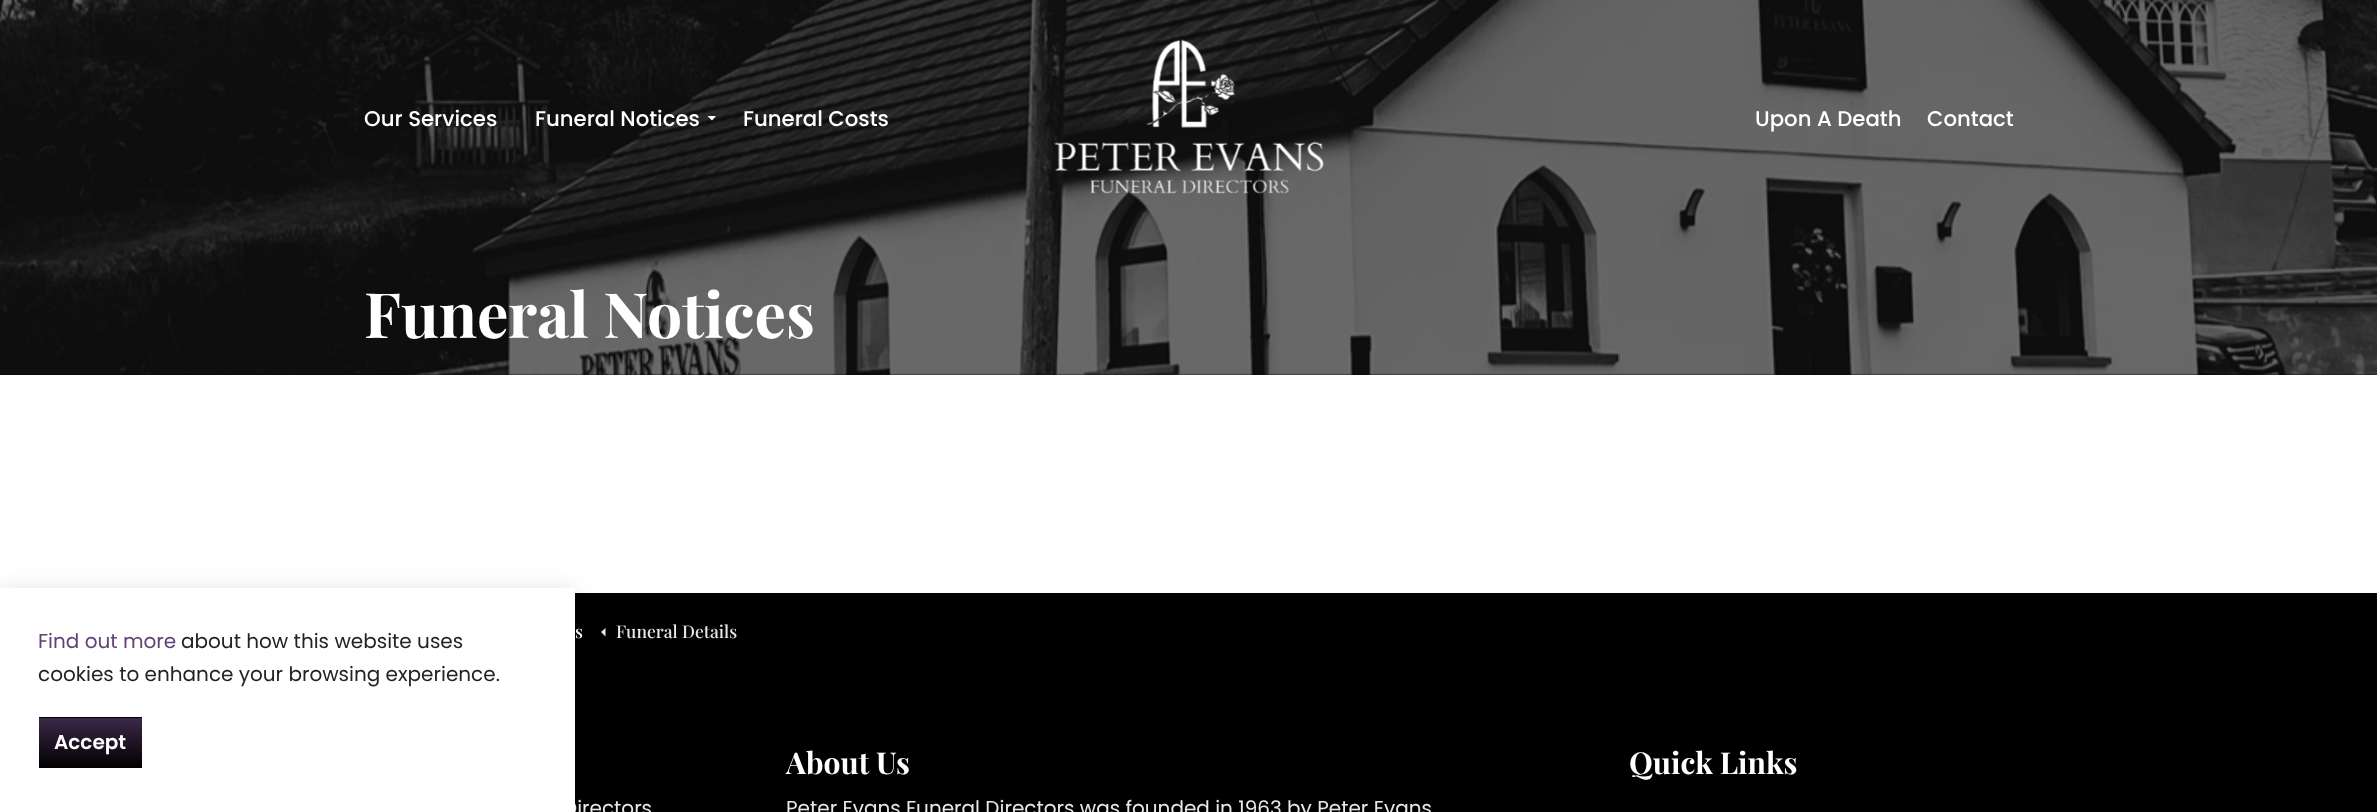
(async () => {
    const canvas = document.querySelector("canvas");
    canvas.width = 2377;
    canvas.height = 812;
    const context = canvas.getContext("2d");
    context.miterLimit = 4;
    context.fontKerning = "normal";
    function write(s, x, y, font, color) {
        context.font = font;
        context.fillStyle = color;
        context.fillText(s, x, y);
    }
    function block(x, y, w, h, color) {
        context.fillStyle = color;
        context.fillRect(x, y, w, h);
    }
    async function photo(src, x, y, w, h) {
        const img = new Image();
        img.src = src;
        await img.decode();
        context.drawImage(img, x, y, w, h);
    }
    let gradient;

    block(0, 0, 2377, 812, "rgb(255, 255, 255)");
    block(575, 593, 1802, 219, "rgb(0, 0, 0)");
    context.fillStyle = "rgb(232, 232, 232)";
    context.beginPath();
    context.moveTo(605.5, 628);
    context.lineTo(605.5, 636.5);
    context.lineTo(601, 632);
    context.closePath();
    context.fill();
    context.fillStyle = "rgba(0, 0, 0, 0.1)";
    context.filter = "blur(9.5px)";
    context.beginPath();
    context.rect(0, 588, 575, 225);
    context.fill();
    context.filter = "none";
    write("Directors", 563, 815, "20px Poppins", "rgb(232, 232, 232)");
    block(0, 588, 575, 224, "rgb(255, 255, 255)");
    write("Find out more", 38, 648, "20px Poppins", "rgb(98, 64, 120)");
    write("about how this website uses", 181, 648, "20px Poppins", "rgb(35, 35, 35)");
    write("cookies to enhance your browsing experience.", 38, 681, "20px Poppins", "rgb(35, 35, 35)");
    gradient = context.createLinearGradient(90, 668, 90, 718);
    gradient.addColorStop(0, "rgb(60, 40, 73)");
    gradient.addColorStop(1, "rgb(0, 0, 0)");
    context.fillStyle = gradient;
    context.fillRect(38, 717, 105, 1);
    gradient = context.createLinearGradient(90, 718, 90, 768);
    gradient.addColorStop(0, "rgb(60, 40, 73)");
    gradient.addColorStop(1, "rgb(0, 0, 0)");
    context.fillStyle = gradient;
    context.fillRect(39, 718, 103, 50);
    context.strokeStyle = "rgb(255, 255, 255)";
    context.strokeRect(38.5, 716.5, 104, 52);
    write("Accept", 54, 749, "600 20px Poppins", "rgb(255, 255, 255)");
    block(0, 373, 2377, 2, "rgb(0, 0, 0)");
    await photo("media/2.png", 0, 0, 2377, 375);
    write("Our Services", 364, 126, "500 21.25px Poppins", "rgb(255, 255, 255)");
    write("Funeral Notices", 535, 126, "500 21.25px Poppins", "rgb(255, 255, 255)");
    context.beginPath();
    context.moveTo(707.5, 116);
    context.lineTo(716, 116);
    context.lineTo(712, 120.5);
    context.closePath();
    context.fill();
    write("Funeral Costs", 743, 126, "500 21.25px Poppins", "rgb(255, 255, 255)");
    await photo("media/1.png", 1053, 39, 271, 155);
    write("Upon A Death", 1755, 126, "500 21.25px Poppins", "rgb(255, 255, 255)");
    write("Contact", 1927, 126, "500 21.25px Poppins", "rgb(255, 255, 255)");
    context.letterSpacing = "-0.1px";
    write("Funeral Notices", 364, 338, "bold 62.5px Playfair Display", "rgb(255, 255, 255)");
    context.letterSpacing = "0px";
    write("s", 575, 638, "500 17.5px Playfair Display", "rgb(255, 255, 255)");
    write("Funeral Details", 616, 638, "500 17.5px Playfair Display", "rgb(232, 232, 232)");
    write("About Us", 786, 774, "bold 30px Playfair Display", "rgb(255, 255, 255)");
    write("Peter Evans Funeral Directors was founded in 1963 by Peter Evans", 786, 815, "20px Poppins", "rgb(232, 232, 232)");
    write("Quick Links", 1629, 774, "bold 30px Playfair Display", "rgb(255, 255, 255)");
})();
